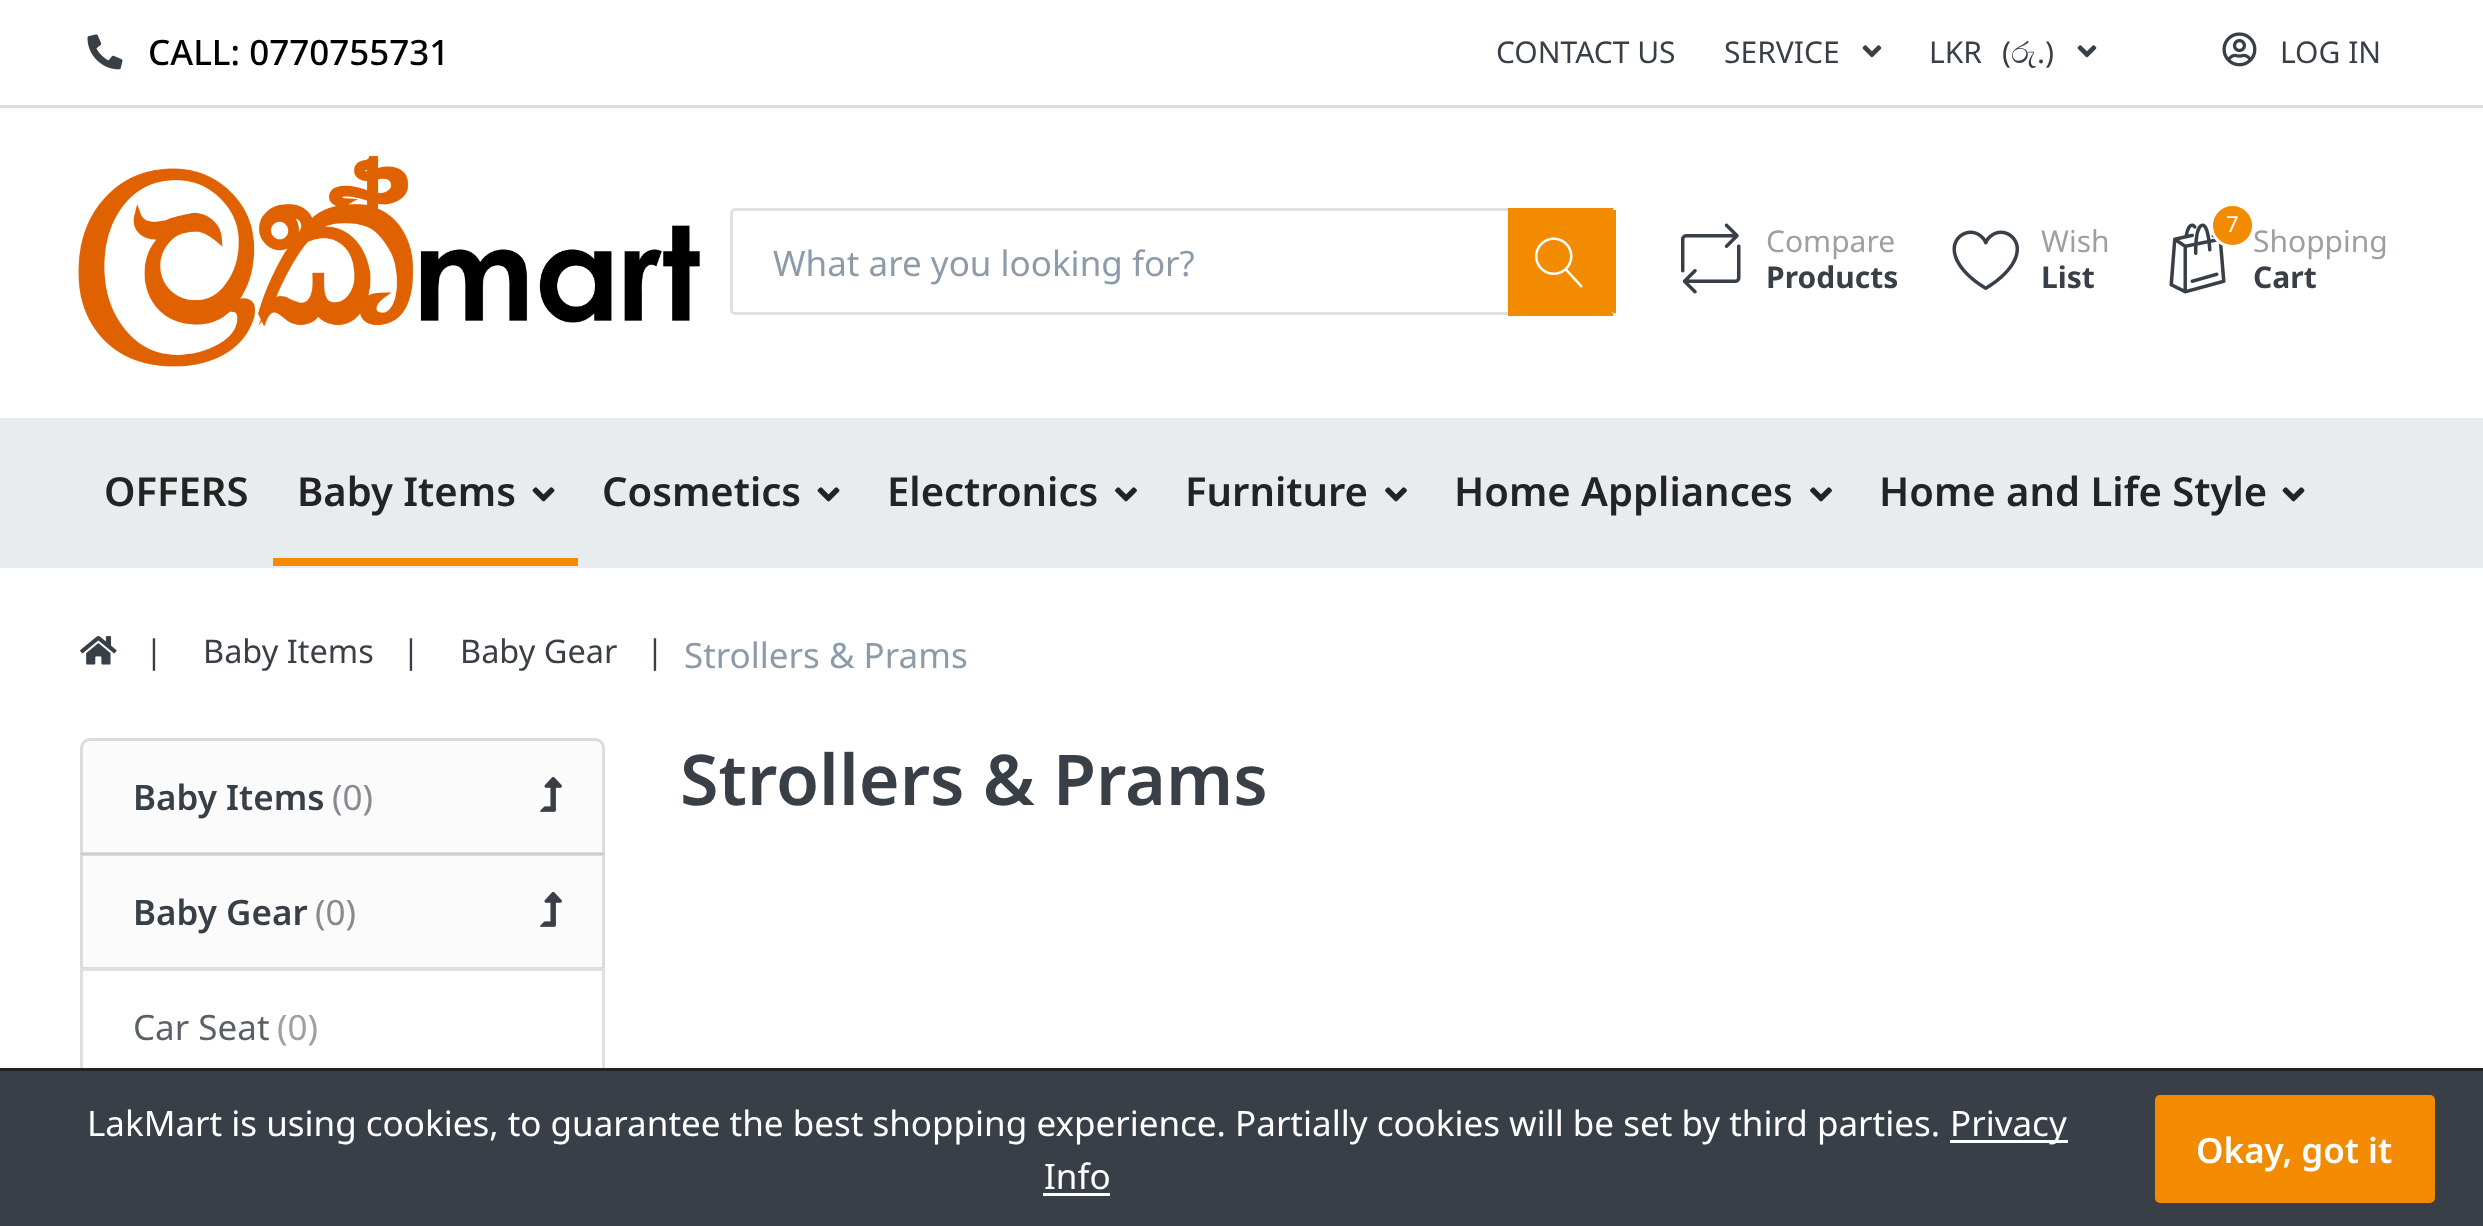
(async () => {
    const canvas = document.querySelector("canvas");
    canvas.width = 2483;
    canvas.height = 1226;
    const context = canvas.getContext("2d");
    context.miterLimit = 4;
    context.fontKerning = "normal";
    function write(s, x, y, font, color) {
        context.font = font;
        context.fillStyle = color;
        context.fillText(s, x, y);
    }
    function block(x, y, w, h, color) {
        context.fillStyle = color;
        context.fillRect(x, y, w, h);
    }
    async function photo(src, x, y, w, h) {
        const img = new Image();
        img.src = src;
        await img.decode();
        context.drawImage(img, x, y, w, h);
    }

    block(0, 0, 2483, 1226, "rgb(255, 255, 255)");
    block(0, 105, 2483, 3, "rgb(221, 221, 221)");
    await photo("media/1.png", 87, 34, 36, 36);
    write("CALL: 0770755731", 148, 65, "500 35px Noto Sans", "rgb(0, 0, 0)");
    write("CONTACT US", 1496, 63, "30px Noto Sans", "rgb(57, 63, 70)");
    write("SERVICE", 1724, 63, "30px Noto Sans", "rgb(57, 63, 70)");
    await photo("media/2.png", 1862, 45, 20, 13);
    write("LKR", 1929, 63, "30px Noto Sans", "rgb(57, 63, 70)");
    write("(", 2002, 63, "30px Noto Sans", "rgb(57, 63, 70)");
    write("රු", 2011, 63, "30px FreeSerif", "rgb(57, 63, 70)");
    write(".)", 2037, 63, "30px Noto Sans", "rgb(57, 63, 70)");
    await photo("media/2.png", 2077, 45, 20, 13);
    await photo("media/3.png", 2222, 32, 35, 35);
    write("LOG IN", 2280, 63, "30px Noto Sans", "rgb(57, 63, 70)");
    await photo("media/4.png", 78, 156, 622, 211);
    context.beginPath();
    context.roundRect(731.5, 209.5, 882, 104, 3.5);
    context.strokeStyle = "rgb(224, 224, 224)";
    context.lineWidth = 3;
    context.stroke();
    write("What are you looking for?", 773, 276, "35px Noto Sans", "rgb(141, 155, 169)");
    context.fillStyle = "rgb(242, 139, 0)";
    context.beginPath();
    context.roundRect(1508, 210, 105, 103, [0, 2.5, 2.5, 0]);
    context.fill();
    block(1508, 208, 105, 3, "rgb(242, 139, 0)");
    block(1613, 210, 3, 103, "rgb(242, 139, 0)");
    block(1508, 313, 105, 3, "rgb(242, 139, 0)");
    await photo("media/5.png", 1535, 237, 48, 51);
    await photo("media/6.png", 1681, 223, 60, 71);
    write("Compare", 1766, 252, "30px Noto Sans", "rgb(156, 159, 163)");
    write("Products", 1766, 288, "bold 30px Noto Sans", "rgb(57, 63, 70)");
    await photo("media/7.png", 1952, 230, 67, 60);
    write("Wish", 2041, 252, "30px Noto Sans", "rgb(156, 159, 163)");
    write("List", 2041, 288, "bold 30px Noto Sans", "rgb(57, 63, 70)");
    await photo("media/8.png", 2169, 223, 57, 71);
    context.fillStyle = "rgb(242, 139, 0)";
    context.beginPath();
    context.arc(2232.5, 225.5, 21, 0, Math.PI * 2);
    context.fill();
    context.strokeStyle = "rgb(255, 255, 255)";
    context.stroke();
    write("7", 2226, 232, "22px Noto Sans", "rgb(255, 255, 255)");
    write("Shopping", 2253, 252, "30px Noto Sans", "rgb(156, 159, 163)");
    write("Cart", 2253, 288, "bold 30px Noto Sans", "rgb(57, 63, 70)");
    block(0, 418, 2483, 150, "rgb(233, 236, 239)");
    write("OFFERS", 104, 506, "600 40px Noto Sans", "rgb(35, 35, 35)");
    write("Baby Items", 297, 506, "600 40px Noto Sans", "rgb(35, 35, 35)");
    await photo("media/9.png", 532, 487, 23, 15);
    block(273, 558, 305, 8, "rgb(242, 139, 0)");
    write("Cosmetics", 602, 506, "600 40px Noto Sans", "rgb(35, 35, 35)");
    await photo("media/9.png", 817, 487, 23, 15);
    write("Electronics", 887, 506, "600 40px Noto Sans", "rgb(35, 35, 35)");
    await photo("media/10.png", 1115, 487, 22, 15);
    write("Furniture", 1185, 506, "600 40px Noto Sans", "rgb(35, 35, 35)");
    await photo("media/10.png", 1385, 487, 22, 15);
    write("Home Appliances", 1454, 506, "600 40px Noto Sans", "rgb(35, 35, 35)");
    await photo("media/10.png", 1810, 487, 22, 15);
    write("Home and Life Style", 1879, 506, "600 40px Noto Sans", "rgb(35, 35, 35)");
    await photo("media/9.png", 2282, 487, 23, 15);
    await photo("media/11.png", 80, 636, 37, 29);
    write("|", 145, 663, "32.5px Noto Sans", "rgb(57, 63, 70)");
    write("Baby Items", 203, 663, "32.5px Noto Sans", "rgb(57, 63, 70)");
    write("|", 402, 663, "32.5px Noto Sans", "rgb(57, 63, 70)");
    write("Baby Gear", 460, 663, "32.5px Noto Sans", "rgb(57, 63, 70)");
    write("|", 646, 663, "32.5px Noto Sans", "rgb(57, 63, 70)");
    write("Strollers & Prams", 684, 668, "35px Noto Sans", "rgb(141, 155, 169)");
    context.fillStyle = "rgb(251, 251, 252)";
    context.beginPath();
    context.roundRect(81.5, 739.5, 522, 114, [8.5, 8.5, 0, 0]);
    context.fill();
    context.strokeStyle = "rgb(220, 220, 221)";
    context.stroke();
    write("Baby Items", 133, 810, "600 35px Noto Sans", "rgb(57, 63, 70)");
    write("(0)", 332, 810, "35px Noto Sans", "rgb(135, 138, 143)");
    await photo("media/12.png", 540, 776, 22, 36);
    block(80, 853, 525, 115, "rgba(247, 247, 249, 0.5)");
    context.strokeStyle = "rgba(0, 0, 0, 0.12)";
    context.strokeRect(81.5, 854.5, 522, 114);
    write("Baby Gear", 133, 925, "600 35px Noto Sans", "rgb(57, 63, 70)");
    write("(0)", 315, 925, "35px Noto Sans", "rgb(135, 138, 143)");
    await photo("media/12.png", 540, 891, 22, 36);
    context.strokeStyle = "rgb(223, 223, 223)";
    context.strokeRect(81.5, 969.5, 522, 114);
    write("Car Seat", 133, 1040, "35px Noto Sans", "rgb(89, 97, 103)");
    write("(0)", 277, 1040, "35px Noto Sans", "rgb(156, 159, 163)");
    write("Strollers & Prams", 680, 805, "600 70px Noto Sans", "rgb(57, 63, 70)");
    block(0, 1071, 2483, 155, "rgb(57, 63, 70)");
    block(0, 1068, 2483, 3, "rgb(34, 34, 34)");
    write("LakMart is using cookies, to guarantee the best shopping experience. Partially cookies will be set by third parties.", 87, 1136, "35px Noto Sans", "rgb(255, 255, 255)");
    block(1950, 1140, 118, 3, "rgb(255, 255, 255)");
    write("Privacy", 1950, 1136, "35px Noto Sans", "rgb(255, 255, 255)");
    write("Info", 1044, 1189, "35px Noto Sans", "rgb(255, 255, 255)");
    block(1043, 1193, 67, 3, "rgb(255, 255, 255)");
    context.fillStyle = "rgb(242, 139, 0)";
    context.beginPath();
    context.roundRect(2156.5, 1096.5, 277, 105, 3.5);
    context.fill();
    context.strokeStyle = "rgb(242, 139, 0)";
    context.stroke();
    write("Okay, got it", 2196, 1163, "600 35px Noto Sans", "rgb(255, 255, 255)");
})();
